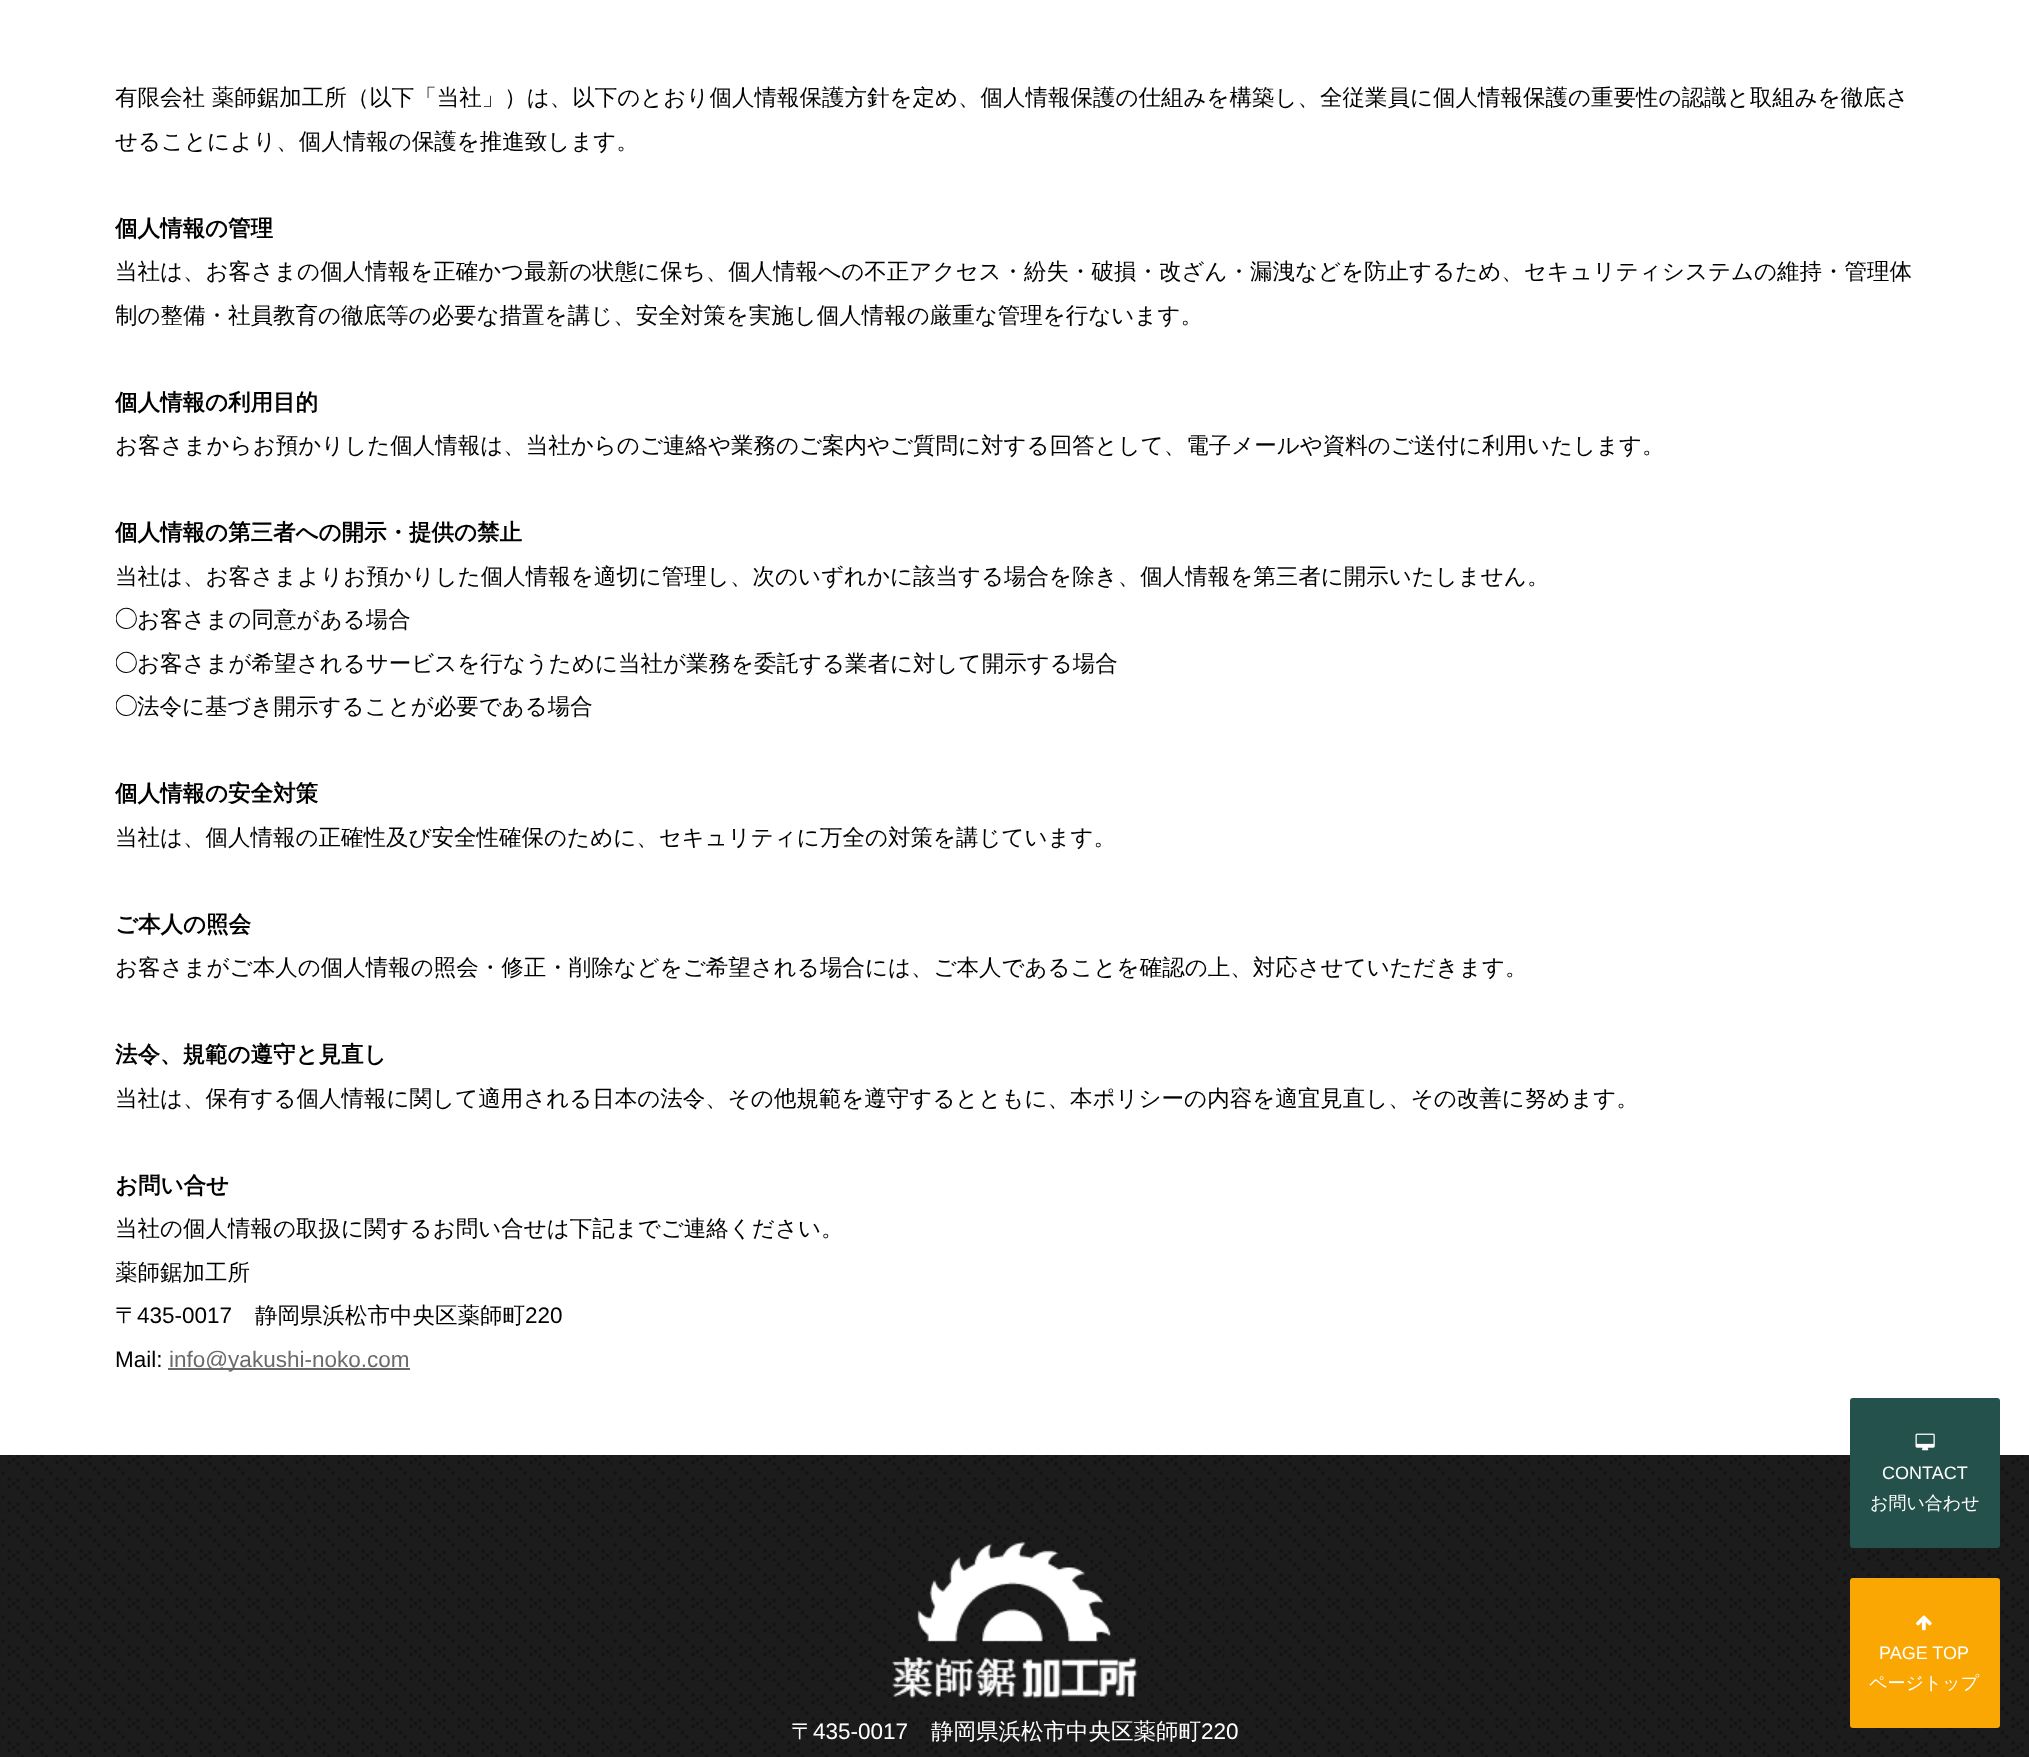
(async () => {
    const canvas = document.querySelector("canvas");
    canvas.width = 2029;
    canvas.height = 1757;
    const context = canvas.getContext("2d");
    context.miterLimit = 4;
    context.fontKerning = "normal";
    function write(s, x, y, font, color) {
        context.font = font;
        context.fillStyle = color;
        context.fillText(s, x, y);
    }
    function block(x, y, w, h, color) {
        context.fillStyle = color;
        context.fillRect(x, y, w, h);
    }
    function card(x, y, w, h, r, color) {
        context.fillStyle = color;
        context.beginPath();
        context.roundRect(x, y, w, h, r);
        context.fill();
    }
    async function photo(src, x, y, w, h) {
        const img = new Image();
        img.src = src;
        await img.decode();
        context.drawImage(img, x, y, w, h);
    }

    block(0, 0, 2029, 1757, "rgb(255, 255, 255)");
    write("有限会社 薬師鋸加工所（以下「当社」）は、以下のとおり個人情報保護方針を定め、個人情報保護の仕組みを構築し、全従業員に個人情報保護の重要性の認識と取組みを徹底さ", 115, 105, "500 22.5px WenQuanYi Zen Hei", "rgb(0, 0, 0)");
    write("せることにより、個人情報の保護を推進致します。", 115, 149, "500 22.5px WenQuanYi Zen Hei", "rgb(0, 0, 0)");
    write("個人情報の管理", 115, 236, "bold 22.5px WenQuanYi Zen Hei", "rgb(0, 0, 0)");
    write("当社は、お客さまの個人情報を正確かつ最新の状態に保ち、個人情報への不正アクセス・紛失・破損・改ざん・漏洩などを防止するため、セキュリティシステムの維持・管理体", 115, 279, "500 22.5px WenQuanYi Zen Hei", "rgb(0, 0, 0)");
    context.save();
    context.beginPath();
    context.rect(116, 75, 1800, 1305);
    context.clip();
    write("制の整備・社員教育の徹底等の必要な措置を講じ、安全対策を実施し個人情報の厳重な管理を行ないます。", 115, 323, "500 22.5px WenQuanYi Zen Hei", "rgb(0, 0, 0)");
    context.restore();
    write("個人情報の利用目的", 115, 410, "bold 22.5px WenQuanYi Zen Hei", "rgb(0, 0, 0)");
    write("お客さまからお預かりした個人情報は、当社からのご連絡や業務のご案内やご質問に対する回答として、電子メールや資料のご送付に利用いたします。", 115, 453, "500 22.5px WenQuanYi Zen Hei", "rgb(0, 0, 0)");
    write("個人情報の第三者への開示・提供の禁止", 115, 540, "bold 22.5px WenQuanYi Zen Hei", "rgb(0, 0, 0)");
    write("当社は、お客さまよりお預かりした個人情報を適切に管理し、次のいずれかに該当する場合を除き、個人情報を第三者に開示いたしません。", 115, 584, "500 22.5px WenQuanYi Zen Hei", "rgb(0, 0, 0)");
    context.save();
    context.beginPath();
    context.rect(116, 75, 1800, 1305);
    context.clip();
    write("◯", 115, 627, "22.5px IPAPGothic", "rgb(0, 0, 0)");
    context.restore();
    write("お客さまの同意がある場合", 137, 627, "500 22.5px WenQuanYi Zen Hei", "rgb(0, 0, 0)");
    context.save();
    context.beginPath();
    context.rect(116, 75, 1800, 1305);
    context.clip();
    write("◯", 115, 671, "22.5px IPAPGothic", "rgb(0, 0, 0)");
    context.restore();
    write("お客さまが希望されるサービスを行なうために当社が業務を委託する業者に対して開示する場合", 137, 671, "500 22.5px WenQuanYi Zen Hei", "rgb(0, 0, 0)");
    context.save();
    context.beginPath();
    context.rect(116, 75, 1800, 1305);
    context.clip();
    write("◯", 115, 714, "22.5px IPAPGothic", "rgb(0, 0, 0)");
    context.restore();
    write("法令に基づき開示することが必要である場合", 137, 714, "500 22.5px WenQuanYi Zen Hei", "rgb(0, 0, 0)");
    write("個人情報の安全対策", 115, 801, "bold 22.5px WenQuanYi Zen Hei", "rgb(0, 0, 0)");
    write("当社は、個人情報の正確性及び安全性確保のために、セキュリティに万全の対策を講じています。", 115, 845, "500 22.5px WenQuanYi Zen Hei", "rgb(0, 0, 0)");
    write("ご本人の照会", 115, 932, "bold 22.5px WenQuanYi Zen Hei", "rgb(0, 0, 0)");
    write("お客さまがご本人の個人情報の照会・修正・削除などをご希望される場合には、ご本人であることを確認の上、対応させていただきます。", 115, 975, "500 22.5px WenQuanYi Zen Hei", "rgb(0, 0, 0)");
    write("法令、規範の遵守と見直し", 115, 1062, "bold 22.5px WenQuanYi Zen Hei", "rgb(0, 0, 0)");
    write("当社は、保有する個人情報に関して適用される日本の法令、その他規範を遵守するとともに、本ポリシーの内容を適宜見直し、その改善に努めます。", 115, 1106, "500 22.5px WenQuanYi Zen Hei", "rgb(0, 0, 0)");
    write("お問い合せ", 115, 1193, "bold 22.5px WenQuanYi Zen Hei", "rgb(0, 0, 0)");
    write("当社の個人情報の取扱に関するお問い合せは下記までご連絡ください。", 115, 1236, "500 22.5px WenQuanYi Zen Hei", "rgb(0, 0, 0)");
    context.save();
    context.beginPath();
    context.rect(116, 75, 1800, 1305);
    context.clip();
    write("薬師鋸加工所", 115, 1280, "500 22.5px WenQuanYi Zen Hei", "rgb(0, 0, 0)");
    context.restore();
    write("〒", 115, 1323, "500 22.5px WenQuanYi Zen Hei", "rgb(0, 0, 0)");
    write("435-0017", 137, 1323, "22.5px Liberation Sans", "rgb(0, 0, 0)");
    write("静岡県浜松市中央区薬師町", 255, 1323, "500 22.5px WenQuanYi Zen Hei", "rgb(0, 0, 0)");
    write("220", 525, 1323, "22.5px Liberation Sans", "rgb(0, 0, 0)");
    write("Mail:", 115, 1367, "22.5px Liberation Sans", "rgb(0, 0, 0)");
    block(168, 1368, 242, 2, "rgb(106, 106, 106)");
    write("info@yakushi-noko.com", 169, 1367, "22.5px Liberation Sans", "rgb(106, 106, 106)");
    await photo("media/3.png", 0, 1455, 2029, 302);
    card(1850, 1398, 150, 150, 3, "rgb(37, 81, 76)");
    await photo("media/1.png", 1915, 1433, 20, 18);
    write("CONTACT", 1882, 1479, "18px Liberation Sans", "rgb(255, 255, 255)");
    write("お問い合わせ", 1870, 1509, "500 18px WenQuanYi Zen Hei", "rgb(255, 255, 255)");
    card(1850, 1578, 150, 150, 3, "rgb(250, 166, 3)");
    await photo("media/2.png", 1916, 1615, 16, 16);
    write("PAGE TOP", 1879, 1659, "18px Liberation Sans", "rgb(255, 255, 255)");
    write("ページトップ", 1869, 1689, "500 18px WenQuanYi Zen Hei", "rgb(255, 255, 255)");
    await photo("media/4.png", 883, 1530, 265, 179);
    write("〒", 791, 1739, "500 22.5px WenQuanYi Zen Hei", "rgb(255, 255, 255)");
    write("435-0017", 813, 1739, "22.5px Liberation Sans", "rgb(255, 255, 255)");
    write("静岡県浜松市中央区薬師町", 931, 1739, "500 22.5px WenQuanYi Zen Hei", "rgb(255, 255, 255)");
    write("220", 1201, 1739, "22.5px Liberation Sans", "rgb(255, 255, 255)");
})();
